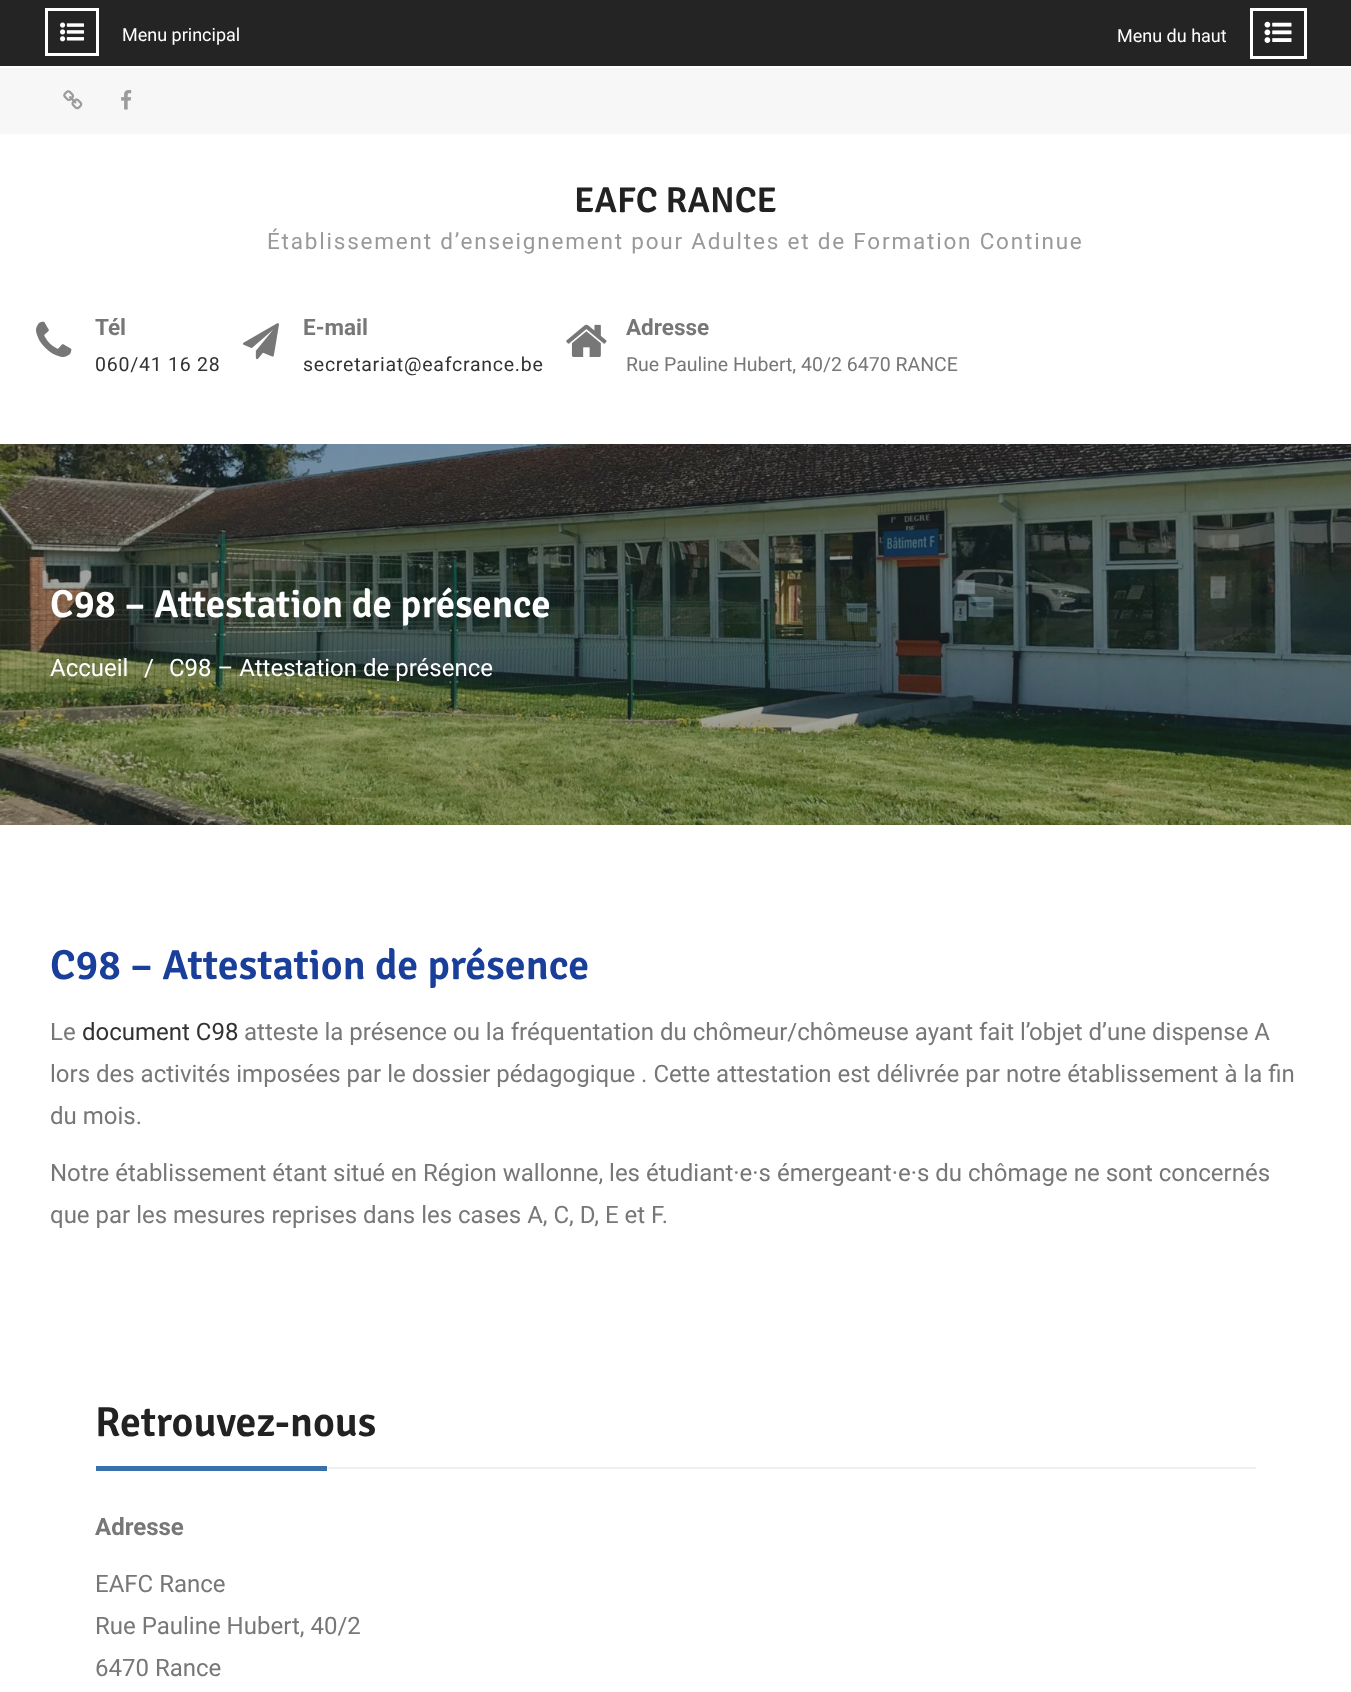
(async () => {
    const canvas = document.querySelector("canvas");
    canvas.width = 1351;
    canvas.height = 1692;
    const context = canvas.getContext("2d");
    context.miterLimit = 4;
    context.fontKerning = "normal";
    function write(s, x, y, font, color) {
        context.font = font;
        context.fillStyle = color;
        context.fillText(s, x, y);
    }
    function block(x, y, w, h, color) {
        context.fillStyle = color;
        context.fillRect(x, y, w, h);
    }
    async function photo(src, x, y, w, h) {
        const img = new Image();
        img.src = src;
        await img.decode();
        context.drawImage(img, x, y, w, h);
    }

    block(0, 0, 1351, 1692, "rgb(255, 255, 255)");
    block(0, 0, 1351, 66, "rgb(36, 36, 36)");
    context.strokeStyle = "rgb(255, 255, 254)";
    context.lineWidth = 3;
    context.strokeRect(46.5, 9.5, 51, 45);
    await photo("media/1.png", 60, 22, 24, 20);
    write("Menu principal", 122, 41, "18px Roboto", "rgb(255, 255, 255)");
    write("Menu du haut", 1117, 42, "18px Roboto", "rgb(255, 255, 255)");
    context.strokeStyle = "rgb(255, 255, 255)";
    context.strokeRect(1251.5, 9.5, 54, 48);
    await photo("media/2.png", 1264, 21, 28, 22);
    block(0, 68, 1351, 66, "rgb(247, 247, 247)");
    await photo("media/3.png", 63, 90, 20, 20);
    await photo("media/4.png", 121, 90, 11, 20);
    write("EAFC RANCE", 574, 212, "600 36px Signika", "rgb(34, 34, 34)");
    context.letterSpacing = "1.8px";
    write("Établissement d’enseignement pour Adultes et de Formation Continue", 267, 249, "22.5px Roboto", "rgb(153, 153, 153)");
    await photo("media/5.png", 36, 321, 36, 36);
    context.letterSpacing = "0px";
    write("Tél", 95, 335, "bold 22.5px Roboto", "rgb(119, 119, 119)");
    context.letterSpacing = "0.75px";
    write("060/41 16 28", 95, 371, "19.5px Roboto", "rgb(50, 50, 50)");
    await photo("media/6.png", 243, 323, 36, 37);
    context.letterSpacing = "0px";
    write("E-mail", 303, 335, "bold 22.5px Roboto", "rgb(119, 119, 119)");
    context.letterSpacing = "0.75px";
    write("secretariat@eafcrance.be", 303, 371, "19.5px Roboto", "rgb(50, 50, 50)");
    await photo("media/7.png", 566, 324, 41, 33);
    context.letterSpacing = "0px";
    write("Adresse", 626, 335, "bold 22.5px Roboto", "rgb(119, 119, 119)");
    write("Rue Pauline Hubert, 40/2 6470 RANCE", 626, 371, "19.5px Roboto", "rgb(119, 119, 119)");
    await photo("media/8.png", 0, 444, 1351, 381);
    write("C98 – Attestation de présence", 50, 617, "600 39px Signika", "rgb(255, 255, 255)");
    write("Accueil", 50, 676, "24px Roboto", "rgb(255, 255, 255)");
    write("/", 144, 676, "24px Roboto", "rgb(255, 255, 255)");
    write("C98 – Attestation de présence", 169, 676, "24px Roboto", "rgb(255, 255, 255)");
    write("C98 – Attestation de présence", 50, 979, "600 42px Signika", "rgb(26, 63, 155)");
    write("Le", 50, 1040, "24px Roboto", "rgb(119, 119, 119)");
    write("document C98", 82, 1040, "24px Roboto", "rgb(50, 50, 50)");
    write("atteste la présence ou la fréquentation du chômeur/chômeuse ayant fait l’objet d’une dispense A", 244, 1040, "24px Roboto", "rgb(119, 119, 119)");
    write("lors des activités imposées par le dossier pédagogique . Cette attestation est délivrée par notre établissement à la fin", 50, 1082, "24px Roboto", "rgb(119, 119, 119)");
    write("du mois.", 50, 1124, "24px Roboto", "rgb(119, 119, 119)");
    write("Notre établissement étant situé en Région wallonne, les étudiant·e·s émergeant·e·s du chômage ne sont concernés", 50, 1181, "24px Roboto", "rgb(119, 119, 119)");
    write("que par les mesures reprises dans les cases A, C, D, E et F.", 50, 1223, "24px Roboto", "rgb(119, 119, 119)");
    block(327, 1467, 929, 2, "rgb(241, 240, 240)");
    write("Retrouvez-nous", 95, 1436, "600 42px Signika", "rgb(34, 34, 34)");
    block(96, 1466, 231, 5, "rgb(55, 112, 171)");
    write("Adresse", 95, 1535, "bold 24px Roboto", "rgb(119, 119, 119)");
    write("EAFC Rance", 95, 1592, "24px Roboto", "rgb(119, 119, 119)");
    write("Rue Pauline Hubert, 40/2", 95, 1634, "24px Roboto", "rgb(119, 119, 119)");
    write("6470 Rance", 95, 1676, "24px Roboto", "rgb(119, 119, 119)");
})();
